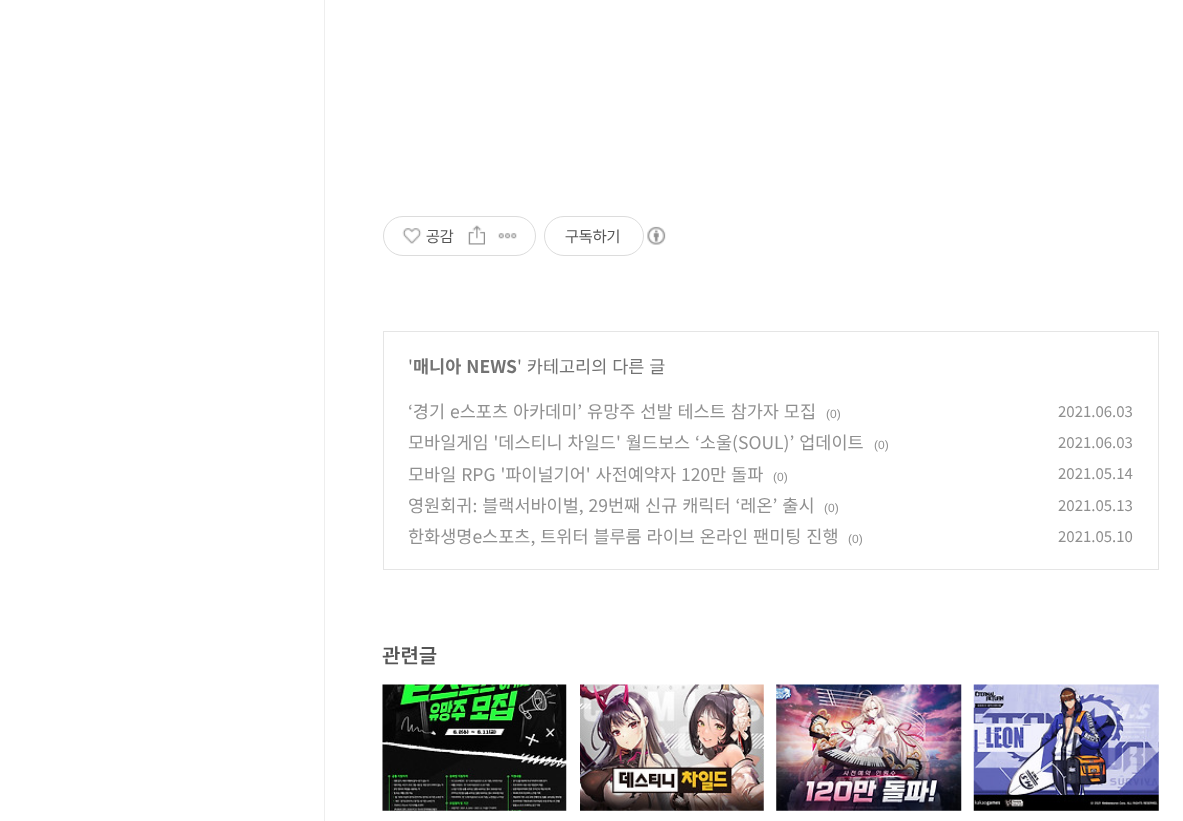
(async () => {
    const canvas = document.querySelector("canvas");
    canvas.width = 1183;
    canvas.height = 821;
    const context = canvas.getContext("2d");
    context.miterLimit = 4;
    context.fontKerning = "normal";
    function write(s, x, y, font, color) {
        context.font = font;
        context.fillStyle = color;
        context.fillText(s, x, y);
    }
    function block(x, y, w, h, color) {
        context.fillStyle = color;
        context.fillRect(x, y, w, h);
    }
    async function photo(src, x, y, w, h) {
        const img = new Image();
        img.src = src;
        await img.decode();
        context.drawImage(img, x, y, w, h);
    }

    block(0, 0, 1183, 821, "rgb(255, 255, 255)");
    block(324, 0, 1, 821, "rgb(238, 238, 238)");
    context.beginPath();
    context.roundRect(383.5, 216.5, 152, 39, 19.5);
    context.strokeStyle = "rgb(220, 220, 220)";
    context.stroke();
    await photo("media/1.png", 402, 228, 20, 16);
    write("공감", 426, 242, "16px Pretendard", "rgb(85, 85, 85)");
    await photo("media/2.png", 468, 225, 17, 20);
    await photo("media/3.png", 498, 233, 19, 6);
    context.beginPath();
    context.roundRect(544.5, 216.5, 99, 39, 19.5);
    context.stroke();
    write("구독하기", 565, 242, "16px Pretendard", "rgb(85, 85, 85)");
    await photo("media/4.png", 647, 226, 19, 19);
    context.strokeStyle = "rgb(229, 229, 229)";
    context.strokeRect(383.5, 331.5, 775, 238);
    write("'", 408, 373, "17.5px Noto Sans KR", "rgb(115, 115, 115)");
    context.wordSpacing = "1px";
    write("매니아 NEWS", 413, 373, "bold 17.5px Noto Sans KR", "rgb(115, 115, 115)");
    write("' 카테고리의 다른 글", 517, 373, "17.5px Noto Sans KR", "rgb(115, 115, 115)");
    write("‘경기 e스포츠 아카데미’ 유망주 선발 테스트 참가자 모집", 408, 418, "17.5px Noto Sans KR", "rgb(144, 144, 144)");
    context.wordSpacing = "0px";
    write("(0)", 826, 418, "12px Liberation Sans", "rgb(144, 144, 144)");
    write("2021.06.03", 1058, 417, "15px Noto Sans KR", "rgb(144, 144, 144)");
    context.wordSpacing = "1px";
    write("모바일게임 '데스티니 차일드' 월드보스 ‘소울(SOUL)’ 업데이트", 408, 449, "17.5px Noto Sans KR", "rgb(144, 144, 144)");
    context.wordSpacing = "0px";
    write("(0)", 874, 449, "12px Liberation Sans", "rgb(144, 144, 144)");
    write("2021.06.03", 1058, 448, "15px Noto Sans KR", "rgb(144, 144, 144)");
    context.wordSpacing = "1px";
    write("모바일 RPG '파이널기어' 사전예약자 120만 돌파", 408, 481, "17.5px Noto Sans KR", "rgb(144, 144, 144)");
    context.wordSpacing = "0px";
    write("(0)", 773, 481, "12px Liberation Sans", "rgb(144, 144, 144)");
    write("2021.05.14", 1058, 479, "15px Noto Sans KR", "rgb(144, 144, 144)");
    context.wordSpacing = "1px";
    write("영원회귀: 블랙서바이벌, 29번째 신규 캐릭터 ‘레온’ 출시", 408, 512, "17.5px Noto Sans KR", "rgb(144, 144, 144)");
    context.wordSpacing = "0px";
    write("(0)", 824, 512, "12px Liberation Sans", "rgb(144, 144, 144)");
    write("2021.05.13", 1058, 511, "15px Noto Sans KR", "rgb(144, 144, 144)");
    context.wordSpacing = "1px";
    write("한화생명e스포츠, 트위터 블루룸 라이브 온라인 팬미팅 진행", 408, 543, "17.5px Noto Sans KR", "rgb(144, 144, 144)");
    context.wordSpacing = "0px";
    write("(0)", 848, 543, "12px Liberation Sans", "rgb(144, 144, 144)");
    write("2021.05.10", 1058, 542, "15px Noto Sans KR", "rgb(144, 144, 144)");
    write("관련글", 382, 663, "600 20px Noto Sans KR", "rgb(85, 85, 85)");
    await photo("media/5.png", 382, 684, 185, 127);
    block(580, 685, 184, 126, "rgb(248, 248, 248)");
    await photo("media/6.png", 580, 684, 184, 127);
    block(776, 685, 185, 126, "rgb(248, 248, 248)");
    await photo("media/7.png", 776, 684, 186, 127);
    block(974, 685, 185, 126, "rgb(248, 248, 248)");
    await photo("media/8.png", 973, 684, 186, 127);
})();
